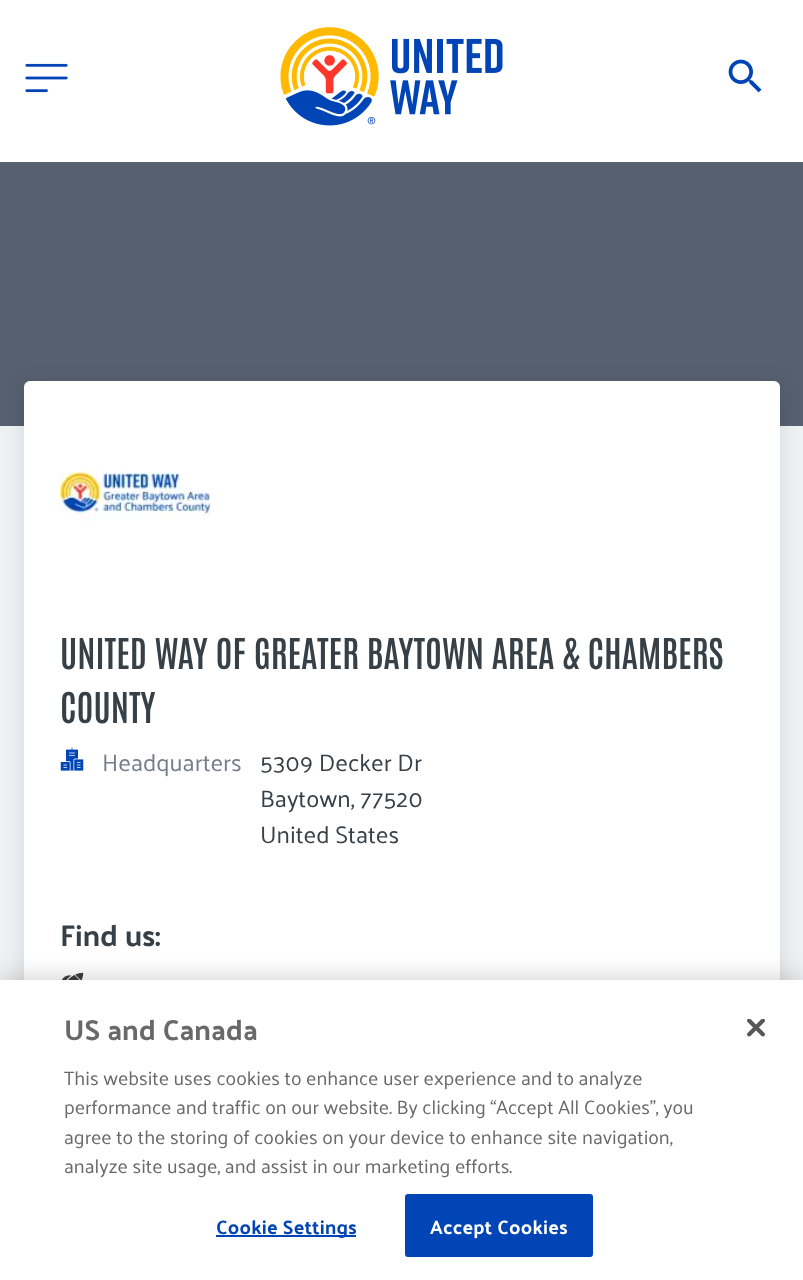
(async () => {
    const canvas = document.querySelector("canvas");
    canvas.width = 803;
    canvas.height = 1280;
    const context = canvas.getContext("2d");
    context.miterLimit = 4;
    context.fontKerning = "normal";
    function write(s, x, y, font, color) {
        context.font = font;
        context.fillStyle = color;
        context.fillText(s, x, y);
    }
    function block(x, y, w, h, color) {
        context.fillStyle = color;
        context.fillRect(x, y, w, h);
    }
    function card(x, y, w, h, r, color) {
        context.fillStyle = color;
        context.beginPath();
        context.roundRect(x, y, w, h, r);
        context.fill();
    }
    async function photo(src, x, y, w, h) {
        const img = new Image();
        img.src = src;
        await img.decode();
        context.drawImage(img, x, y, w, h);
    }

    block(0, 0, 803, 1280, "rgb(239, 242, 244)");
    block(0, 0, 803, 162, "rgb(255, 255, 255)");
    await photo("media/1.png", 25, 63, 43, 30);
    await photo("media/2.png", 280, 27, 223, 99);
    await photo("media/3.png", 728, 59, 34, 34);
    block(0, 162, 803, 264, "rgb(87, 96, 111)");
    context.fillStyle = "rgba(0, 0, 0, 0.1)";
    context.filter = "blur(11px)";
    context.beginPath();
    context.roundRect(24, 386, 756, 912, 6);
    context.fill();
    context.filter = "none";
    card(24, 381, 756, 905, 6, "rgb(255, 255, 255)");
    await photo("media/4.png", 60, 469, 150, 52);
    write("UNITED WAY OF GREATER BAYTOWN AREA & CHAMBERS", 60, 669, "600 36px Antonio", "rgb(55, 64, 71)");
    write("COUNTY", 60, 723, "600 36px Antonio", "rgb(55, 64, 71)");
    await photo("media/5.png", 60, 747, 24, 24);
    write("Headquarters", 102, 771, "24px Palanquin", "rgb(116, 125, 140)");
    write("5309 Decker Dr", 260, 771, "24px Palanquin", "rgb(55, 64, 71)");
    write("Baytown, 77520", 260, 807, "24px Palanquin", "rgb(55, 64, 71)");
    write("United States", 260, 843, "24px Palanquin", "rgb(55, 64, 71)");
    write("Find us:", 60, 946, "bold 30px Palanquin", "rgb(55, 64, 71)");
    await photo("media/6.png", 62, 972, 22, 8);
    context.fillStyle = "rgba(0, 0, 0, 0.2)";
    context.filter = "blur(13.5px)";
    context.beginPath();
    context.rect(0, 980, 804, 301);
    context.fill();
    context.filter = "none";
    block(0, 980, 803, 300, "rgb(255, 255, 255)");
    write("US and Canada", 64, 1040, "bold 28.75px Palanquin", "rgb(105, 105, 105)");
    write("This website uses cookies to enhance user experience and to analyze", 64, 1085, "19.5px Palanquin", "rgb(105, 105, 105)");
    write("performance and traffic on our website. By clicking “Accept All Cookies”, you", 64, 1114, "19.5px Palanquin", "rgb(105, 105, 105)");
    write("agree to the storing of cookies on your device to enhance site navigation,", 64, 1144, "19.5px Palanquin", "rgb(105, 105, 105)");
    write("analyze site usage, and assist in our marketing efforts.", 64, 1173, "19.5px Palanquin", "rgb(105, 105, 105)");
    block(216, 1235, 140, 2, "rgb(0, 68, 181)");
    context.letterSpacing = "0.25px";
    write("Cookie Settings", 216, 1234, "bold 19.5px Palanquin", "rgb(0, 68, 181)");
    context.beginPath();
    context.roundRect(406, 1195, 186, 61, 2);
    context.fill();
    context.strokeStyle = "rgb(0, 68, 181)";
    context.lineWidth = 2;
    context.stroke();
    write("Accept Cookies", 430, 1234, "bold 19.5px Palanquin", "rgb(255, 255, 255)");
    await photo("media/7.png", 747, 1019, 18, 18);
})();
